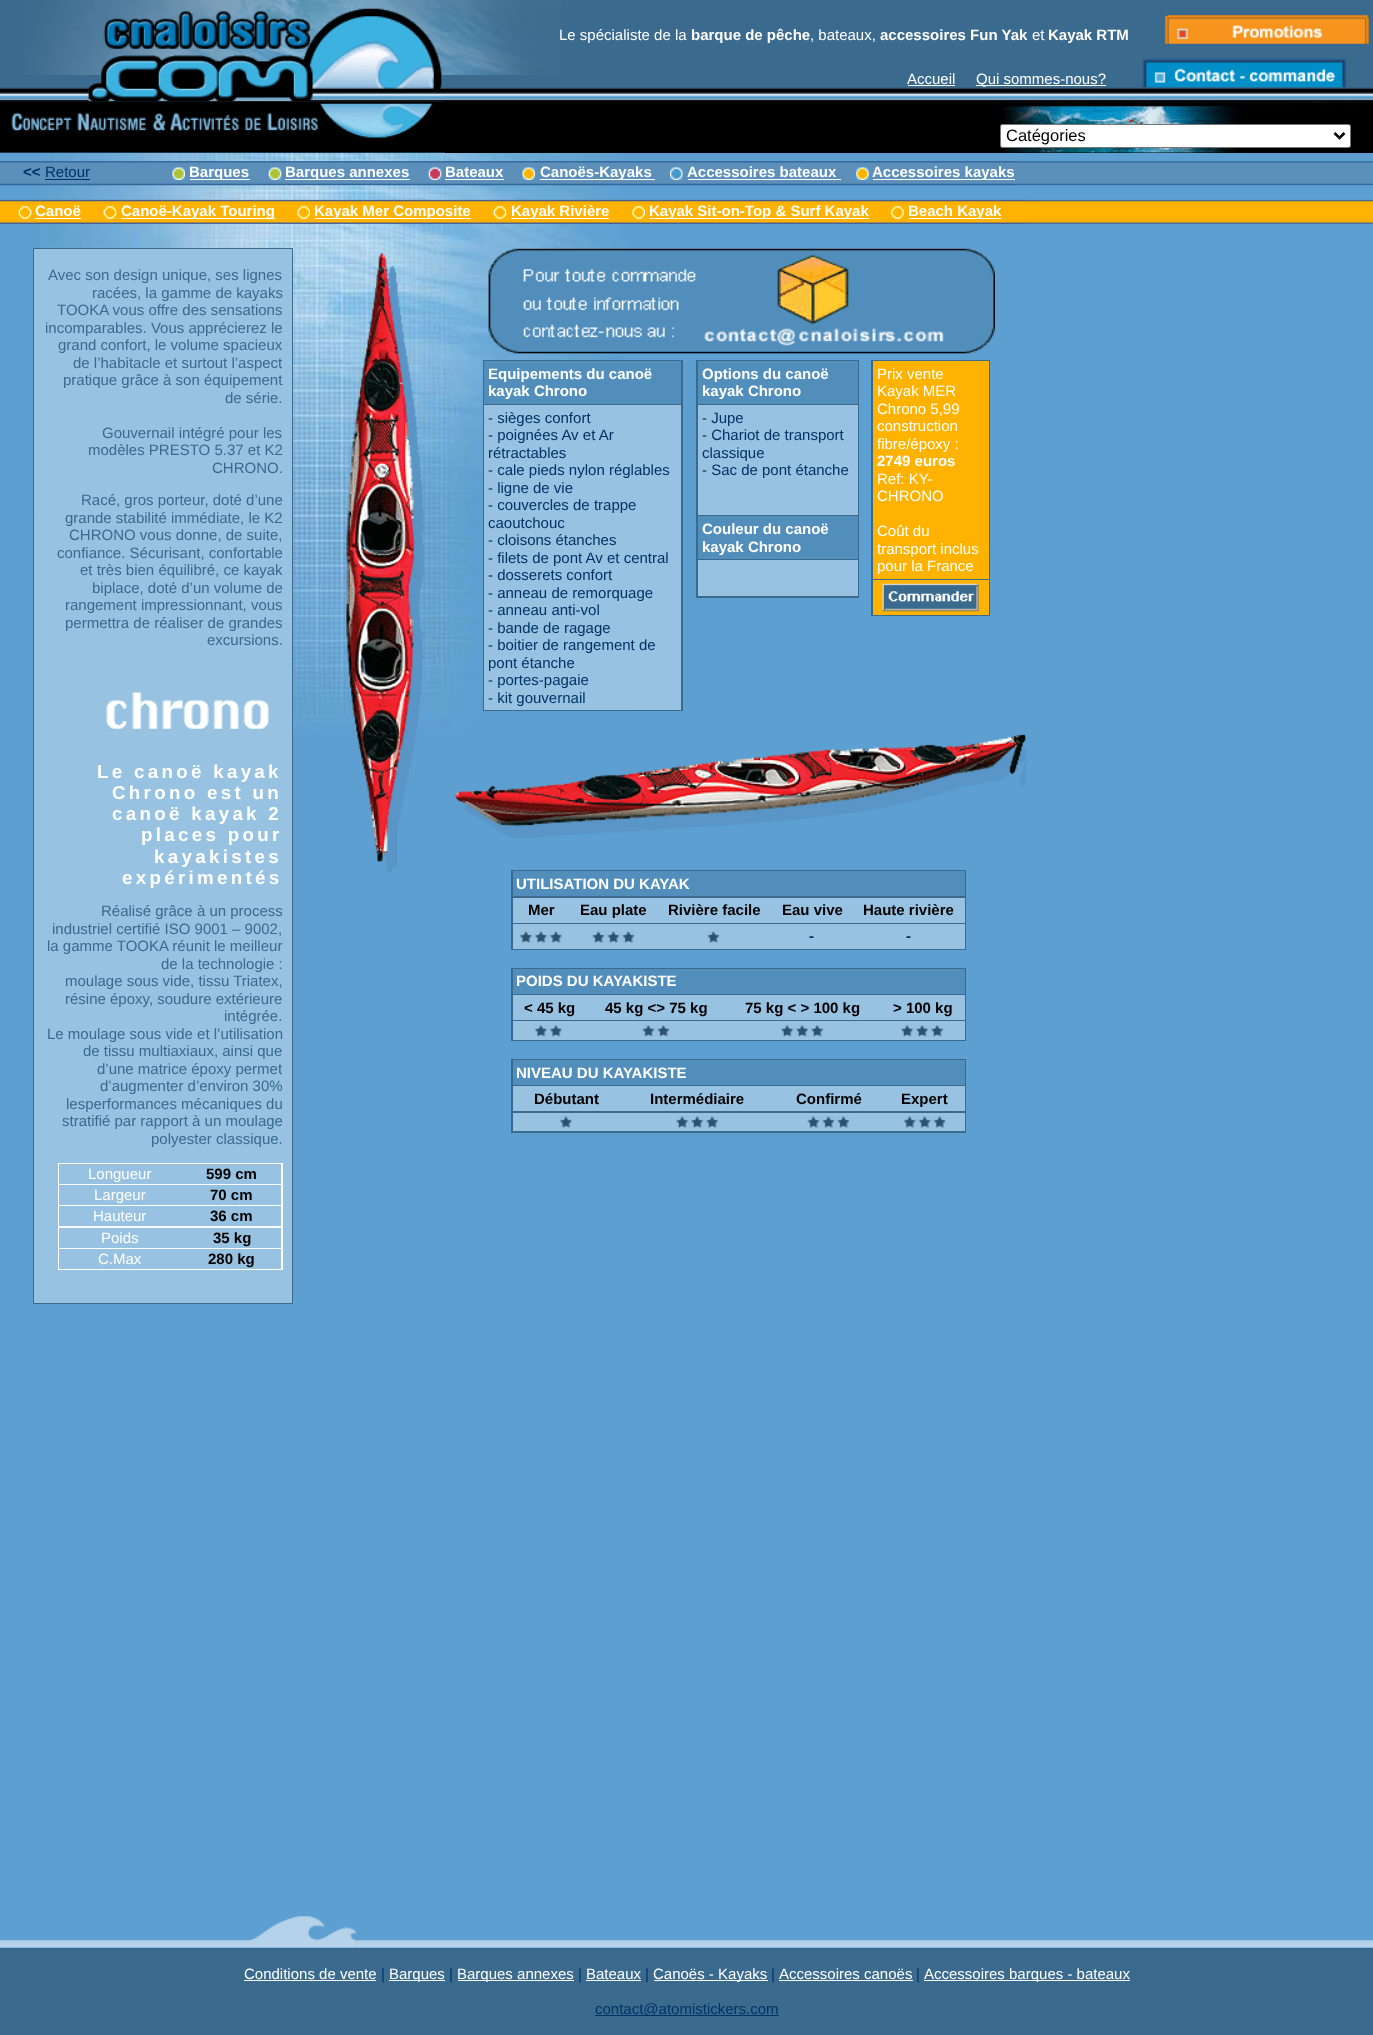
(async () => {
    const canvas = document.querySelector("canvas");
    canvas.width = 1373;
    canvas.height = 2035;
    const context = canvas.getContext("2d");
    context.miterLimit = 4;
    context.fontKerning = "normal";
    function write(s, x, y, font, color) {
        context.font = font;
        context.fillStyle = color;
        context.fillText(s, x, y);
    }
    function block(x, y, w, h, color) {
        context.fillStyle = color;
        context.fillRect(x, y, w, h);
    }
    async function photo(src, x, y, w, h) {
        const img = new Image();
        img.src = src;
        await img.decode();
        context.drawImage(img, x, y, w, h);
    }

    block(0, 0, 1373, 2035, "rgb(93, 159, 209)");
    await photo("media/1.png", 41, 153, 584, 577);
    block(0, 0, 1373, 153, "rgb(58, 106, 141)");
    await photo("media/2.png", 24, 0, 537, 75);
    await photo("media/3.png", 0, 87, 89, 15);
    await photo("media/4.png", 88, 8, 357, 94);
    write("Le spécialiste de la", 559, 40, "15px Liberation Sans", "rgb(255, 255, 255)");
    write("barque de pêche", 691, 40, "bold 15px Liberation Sans", "rgb(255, 255, 255)");
    write(", bateaux,", 810, 40, "15px Liberation Sans", "rgb(255, 255, 255)");
    write("accessoires Fun Yak", 880, 40, "bold 15px Liberation Sans", "rgb(255, 255, 255)");
    write("et", 1032, 40, "15px Liberation Sans", "rgb(255, 255, 255)");
    write("Kayak RTM", 1048, 40, "bold 15px Liberation Sans", "rgb(255, 255, 255)");
    await photo("media/5.png", 1164, 14, 205, 30);
    write("Accueil", 907, 84, "15px Liberation Sans", "rgb(255, 255, 255)");
    block(908, 85, 47, 1, "rgb(255, 255, 255)");
    block(976, 85, 130, 1, "rgb(255, 255, 255)");
    write("Qui sommes-nous?", 976, 84, "15px Liberation Sans", "rgb(255, 255, 255)");
    await photo("media/6.png", 1142, 58, 205, 30);
    block(445, 101, 928, 52, "rgb(0, 0, 0)");
    await photo("media/9.png", 990, 101, 383, 52);
    await photo("media/7.png", 445, 87, 928, 15);
    await photo("media/8.png", 0, 101, 445, 52);
    context.fillStyle = "rgb(255, 255, 255)";
    context.beginPath();
    context.roundRect(1000.5, 124.5, 350, 23, 2);
    context.fill();
    context.strokeStyle = "rgb(118, 118, 118)";
    context.stroke();
    context.beginPath();
    context.moveTo(1334.5, 133);
    context.lineTo(1339.5, 138);
    context.lineTo(1344.5, 133);
    context.strokeStyle = "rgb(0, 0, 0)";
    context.lineWidth = 2.5;
    context.stroke();
    write("Catégories", 1006, 141, "16.5px Liberation Sans", "rgb(0, 0, 0)");
    await photo("media/10.png", 0, 161, 1373, 25);
    await photo("media/11.png", 0, 161, 105, 25);
    write("<<", 23, 177, "bold 15px Liberation Sans", "rgb(0, 51, 102)");
    write("Retour", 45, 177, "15px Liberation Sans", "rgb(0, 51, 102)");
    block(45, 179, 45, 1, "rgb(0, 51, 102)");
    await photo("media/12.png", 105, 161, 910, 25);
    await photo("media/13.png", 172, 167, 13, 13);
    block(190, 179, 60, 1, "rgb(255, 255, 255)");
    write("Barques", 189, 177, "bold 15px Liberation Sans", "rgb(255, 255, 255)");
    await photo("media/14.png", 268, 167, 14, 13);
    block(285, 179, 125, 1, "rgb(255, 255, 255)");
    write("Barques annexes", 285, 177, "bold 15px Liberation Sans", "rgb(255, 255, 255)");
    await photo("media/15.png", 428, 167, 14, 13);
    write("Bateaux", 445, 177, "bold 15px Liberation Sans", "rgb(255, 255, 255)");
    block(445, 179, 59, 1, "rgb(255, 255, 255)");
    await photo("media/16.png", 522, 167, 13, 13);
    block(540, 179, 115, 1, "rgb(255, 255, 255)");
    write("Canoës-Kayaks", 540, 177, "bold 15px Liberation Sans", "rgb(255, 255, 255)");
    await photo("media/17.png", 670, 167, 13, 13);
    write("Accessoires bateaux", 687, 177, "bold 15px Liberation Sans", "rgb(255, 255, 255)");
    block(688, 179, 153, 1, "rgb(255, 255, 255)");
    await photo("media/18.png", 856, 167, 13, 13);
    block(873, 179, 142, 1, "rgb(255, 255, 255)");
    write("Accessoires kayaks", 872, 177, "bold 15px Liberation Sans", "rgb(255, 255, 255)");
    await photo("media/19.png", 0, 199, 1373, 25);
    await photo("media/20.png", 0, 199, 1025, 25);
    await photo("media/21.png", 18, 206, 14, 13);
    write("Canoë", 35, 216, "bold 15px Liberation Sans", "rgb(255, 255, 255)");
    block(35, 218, 46, 1, "rgb(255, 255, 255)");
    await photo("media/22.png", 103, 206, 14, 13);
    block(121, 218, 154, 1, "rgb(255, 255, 255)");
    write("Canoë-Kayak Touring", 121, 216, "bold 15px Liberation Sans", "rgb(255, 255, 255)");
    await photo("media/23.png", 297, 206, 13, 13);
    block(315, 218, 156, 1, "rgb(255, 255, 255)");
    write("Kayak Mer Composite", 314, 216, "bold 15px Liberation Sans", "rgb(255, 255, 255)");
    await photo("media/21.png", 493, 206, 14, 13);
    block(511, 218, 98, 1, "rgb(255, 255, 255)");
    write("Kayak Rivière", 511, 216, "bold 15px Liberation Sans", "rgb(255, 255, 255)");
    await photo("media/23.png", 632, 206, 13, 13);
    block(649, 218, 220, 1, "rgb(255, 255, 255)");
    write("Kayak Sit-on-Top & Surf Kayak", 649, 216, "bold 15px Liberation Sans", "rgb(255, 255, 255)");
    await photo("media/24.png", 891, 206, 13, 13);
    block(909, 218, 92, 1, "rgb(255, 255, 255)");
    write("Beach Kayak", 908, 216, "bold 15px Liberation Sans", "rgb(255, 255, 255)");
    context.fillStyle = "rgb(151, 194, 226)";
    context.beginPath();
    context.rect(33.5, 248.5, 259, 1055);
    context.fill();
    context.strokeStyle = "rgb(58, 106, 141)";
    context.lineWidth = 1;
    context.stroke();
    write("Avec son design unique, ses lignes", 48, 280, "15px Liberation Sans", "rgb(58, 106, 141)");
    write("racées, la gamme de kayaks", 92, 298, "15px Liberation Sans", "rgb(58, 106, 141)");
    write("TOOKA vous offre des sensations", 57, 315, "15px Liberation Sans", "rgb(58, 106, 141)");
    write("incomparables. Vous apprécierez le", 45, 333, "15px Liberation Sans", "rgb(58, 106, 141)");
    write("grand confort, le volume spacieux", 58, 350, "15px Liberation Sans", "rgb(58, 106, 141)");
    write("de l’habitacle et surtout l’aspect", 73, 368, "15px Liberation Sans", "rgb(58, 106, 141)");
    write("pratique grâce à son équipement", 63, 385, "15px Liberation Sans", "rgb(58, 106, 141)");
    write("de série.", 225, 403, "15px Liberation Sans", "rgb(58, 106, 141)");
    write("Gouvernail intégré pour les", 102, 438, "15px Liberation Sans", "rgb(58, 106, 141)");
    write("modèles PRESTO 5.37 et K2", 88, 455, "15px Liberation Sans", "rgb(58, 106, 141)");
    write("CHRONO.", 212, 473, "15px Liberation Sans", "rgb(58, 106, 141)");
    write("Racé, gros porteur, doté d’une", 81, 505, "15px Liberation Sans", "rgb(58, 106, 141)");
    write("grande stabilité immédiate, le K2", 65, 523, "15px Liberation Sans", "rgb(58, 106, 141)");
    write("CHRONO vous donne, de suite,", 69, 540, "15px Liberation Sans", "rgb(58, 106, 141)");
    write("confiance. Sécurisant, confortable", 57, 558, "15px Liberation Sans", "rgb(58, 106, 141)");
    write("et très bien équilibré, ce kayak", 80, 575, "15px Liberation Sans", "rgb(58, 106, 141)");
    write("biplace, doté d’un volume de", 92, 593, "15px Liberation Sans", "rgb(58, 106, 141)");
    write("rangement impressionnant, vous", 65, 610, "15px Liberation Sans", "rgb(58, 106, 141)");
    write("permettra de réaliser de grandes", 65, 628, "15px Liberation Sans", "rgb(58, 106, 141)");
    write("excursions.", 207, 645, "15px Liberation Sans", "rgb(58, 106, 141)");
    await photo("media/25.png", 106, 692, 163, 37);
    context.letterSpacing = "3.3px";
    write("Le canoë kayak", 97, 778, "bold 18.75px Liberation Sans", "rgb(255, 255, 255)");
    write("Chrono est un", 112, 799, "bold 18.75px Liberation Sans", "rgb(255, 255, 255)");
    write("canoë kayak 2", 112, 820, "bold 18.75px Liberation Sans", "rgb(255, 255, 255)");
    write("places pour", 141, 841, "bold 18.75px Liberation Sans", "rgb(255, 255, 255)");
    write("kayakistes", 154, 863, "bold 18.75px Liberation Sans", "rgb(255, 255, 255)");
    write("expérimentés", 122, 884, "bold 18.75px Liberation Sans", "rgb(255, 255, 255)");
    context.letterSpacing = "0px";
    write("Réalisé grâce à un process", 101, 916, "15px Liberation Sans", "rgb(58, 106, 141)");
    write("industriel certifié ISO 9001 – 9002,", 52, 934, "15px Liberation Sans", "rgb(58, 106, 141)");
    write("la gamme TOOKA réunit le meilleur", 47, 951, "15px Liberation Sans", "rgb(58, 106, 141)");
    write("de la technologie :", 161, 969, "15px Liberation Sans", "rgb(58, 106, 141)");
    write("moulage sous vide, tissu Triatex,", 65, 986, "15px Liberation Sans", "rgb(58, 106, 141)");
    write("résine époxy, soudure extérieure", 65, 1004, "15px Liberation Sans", "rgb(58, 106, 141)");
    write("intégrée.", 224, 1021, "15px Liberation Sans", "rgb(58, 106, 141)");
    write("Le moulage sous vide et l’utilisation", 47, 1039, "15px Liberation Sans", "rgb(58, 106, 141)");
    write("de tissu multiaxiaux, ainsi que", 83, 1056, "15px Liberation Sans", "rgb(58, 106, 141)");
    write("d’une matrice époxy permet", 97, 1074, "15px Liberation Sans", "rgb(58, 106, 141)");
    write("d’augmenter d’environ 30%", 100, 1091, "15px Liberation Sans", "rgb(58, 106, 141)");
    write("lesperformances mécaniques du", 66, 1109, "15px Liberation Sans", "rgb(58, 106, 141)");
    write("stratifié par rapport à un moulage", 62, 1126, "15px Liberation Sans", "rgb(58, 106, 141)");
    write("polyester classique.", 151, 1144, "15px Liberation Sans", "rgb(58, 106, 141)");
    block(58, 1163, 225, 107, "rgb(255, 255, 255)");
    block(59, 1164, 222, 20, "rgb(151, 194, 226)");
    write("Longueur", 88, 1179, "15px Liberation Sans", "rgb(255, 255, 255)");
    write("599 cm", 206, 1179, "bold 15px Liberation Sans", "rgb(0, 0, 0)");
    block(59, 1185, 222, 20, "rgb(151, 194, 226)");
    write("Largeur", 94, 1200, "15px Liberation Sans", "rgb(255, 255, 255)");
    write("70 cm", 210, 1200, "bold 15px Liberation Sans", "rgb(0, 0, 0)");
    block(59, 1206, 222, 20, "rgb(151, 194, 226)");
    write("Hauteur", 93, 1221, "15px Liberation Sans", "rgb(255, 255, 255)");
    write("36 cm", 210, 1221, "bold 15px Liberation Sans", "rgb(0, 0, 0)");
    block(59, 1228, 222, 20, "rgb(151, 194, 226)");
    write("Poids", 101, 1243, "15px Liberation Sans", "rgb(255, 255, 255)");
    write("35 kg", 213, 1243, "bold 15px Liberation Sans", "rgb(0, 0, 0)");
    block(59, 1249, 222, 20, "rgb(151, 194, 226)");
    write("C.Max", 98, 1264, "15px Liberation Sans", "rgb(255, 255, 255)");
    write("280 kg", 208, 1264, "bold 15px Liberation Sans", "rgb(0, 0, 0)");
    await photo("media/26.png", 345, 252, 80, 621);
    await photo("media/27.png", 488, 248, 507, 106);
    block(483, 360, 200, 351, "rgb(58, 106, 141)");
    block(484, 361, 197, 43, "rgb(82, 142, 187)");
    write("Equipements du canoë", 488, 379, "bold 15px Liberation Sans", "rgb(255, 255, 255)");
    write("kayak Chrono", 488, 396, "bold 15px Liberation Sans", "rgb(255, 255, 255)");
    block(484, 405, 197, 305, "rgb(151, 194, 226)");
    write("- sièges confort", 488, 423, "15px Liberation Sans", "rgb(0, 51, 102)");
    write("- poignées Av et Ar", 488, 440, "15px Liberation Sans", "rgb(0, 51, 102)");
    write("rétractables", 488, 458, "15px Liberation Sans", "rgb(0, 51, 102)");
    write("- cale pieds nylon réglables", 488, 475, "15px Liberation Sans", "rgb(0, 51, 102)");
    write("- ligne de vie", 488, 493, "15px Liberation Sans", "rgb(0, 51, 102)");
    write("- couvercles de trappe", 488, 510, "15px Liberation Sans", "rgb(0, 51, 102)");
    write("caoutchouc", 488, 528, "15px Liberation Sans", "rgb(0, 51, 102)");
    write("- cloisons étanches", 488, 545, "15px Liberation Sans", "rgb(0, 51, 102)");
    write("- filets de pont Av et central", 488, 563, "15px Liberation Sans", "rgb(0, 51, 102)");
    write("- dosserets confort", 488, 580, "15px Liberation Sans", "rgb(0, 51, 102)");
    write("- anneau de remorquage", 488, 598, "15px Liberation Sans", "rgb(0, 51, 102)");
    write("- anneau anti-vol", 488, 615, "15px Liberation Sans", "rgb(0, 51, 102)");
    write("- bande de ragage", 488, 633, "15px Liberation Sans", "rgb(0, 51, 102)");
    write("- boitier de rangement de", 488, 650, "15px Liberation Sans", "rgb(0, 51, 102)");
    write("pont étanche", 488, 668, "15px Liberation Sans", "rgb(0, 51, 102)");
    write("- portes-pagaie", 488, 685, "15px Liberation Sans", "rgb(0, 51, 102)");
    write("- kit gouvernail", 488, 703, "15px Liberation Sans", "rgb(0, 51, 102)");
    block(696, 360, 163, 238, "rgb(58, 106, 141)");
    block(698, 361, 160, 43, "rgb(82, 142, 187)");
    write("Options du canoë", 702, 379, "bold 15px Liberation Sans", "rgb(255, 255, 255)");
    write("kayak Chrono", 702, 396, "bold 15px Liberation Sans", "rgb(255, 255, 255)");
    block(698, 405, 160, 110, "rgb(151, 194, 226)");
    write("- Jupe", 702, 423, "15px Liberation Sans", "rgb(0, 51, 102)");
    write("- Chariot de transport", 702, 440, "15px Liberation Sans", "rgb(0, 51, 102)");
    write("classique", 702, 458, "15px Liberation Sans", "rgb(0, 51, 102)");
    write("- Sac de pont étanche", 702, 475, "15px Liberation Sans", "rgb(0, 51, 102)");
    block(698, 516, 160, 43, "rgb(82, 142, 187)");
    write("Couleur du canoë", 702, 534, "bold 15px Liberation Sans", "rgb(255, 255, 255)");
    write("kayak Chrono", 702, 552, "bold 15px Liberation Sans", "rgb(255, 255, 255)");
    block(698, 560, 160, 36, "rgb(151, 194, 226)");
    block(871, 360, 119, 256, "rgb(58, 106, 141)");
    block(873, 361, 116, 218, "rgb(255, 179, 0)");
    write("Prix vente", 877, 379, "15px Liberation Sans", "rgb(255, 255, 255)");
    write("Kayak MER", 877, 396, "15px Liberation Sans", "rgb(255, 255, 255)");
    write("Chrono 5,99", 877, 414, "15px Liberation Sans", "rgb(255, 255, 255)");
    write("construction", 877, 431, "15px Liberation Sans", "rgb(255, 255, 255)");
    write("fibre/époxy :", 877, 449, "15px Liberation Sans", "rgb(255, 255, 255)");
    write("2749 euros", 877, 466, "bold 15px Liberation Sans", "rgb(255, 255, 255)");
    write("Ref: KY-", 877, 484, "15px Liberation Sans", "rgb(255, 255, 255)");
    write("CHRONO", 877, 501, "15px Liberation Sans", "rgb(255, 255, 255)");
    write("Coût du", 877, 536, "15px Liberation Sans", "rgb(255, 255, 255)");
    write("transport inclus", 877, 554, "15px Liberation Sans", "rgb(255, 255, 255)");
    write("pour la France", 877, 571, "15px Liberation Sans", "rgb(255, 255, 255)");
    block(873, 580, 116, 35, "rgb(255, 179, 0)");
    await photo("media/28.png", 882, 583, 97, 29);
    await photo("media/29.png", 454, 734, 573, 104);
    block(511, 870, 455, 80, "rgb(58, 106, 141)");
    block(513, 871, 452, 25, "rgb(82, 142, 187)");
    write("UTILISATION DU KAYAK", 516, 889, "bold 15px Liberation Sans", "rgb(255, 255, 255)");
    block(513, 898, 452, 25, "rgb(151, 194, 226)");
    write("Mer", 528, 915, "bold 15px Liberation Sans", "rgb(0, 0, 0)");
    write("Eau plate", 580, 915, "bold 15px Liberation Sans", "rgb(0, 0, 0)");
    write("Rivière facile", 668, 915, "bold 15px Liberation Sans", "rgb(0, 0, 0)");
    write("Eau vive", 782, 915, "bold 15px Liberation Sans", "rgb(0, 0, 0)");
    write("Haute rivière", 863, 915, "bold 15px Liberation Sans", "rgb(0, 0, 0)");
    block(513, 924, 452, 25, "rgb(151, 194, 226)");
    await photo("media/30.png", 520, 931, 43, 12);
    await photo("media/31.png", 592, 931, 43, 12);
    await photo("media/32.png", 707, 931, 13, 12);
    write("-", 809, 941, "bold 15px Liberation Sans", "rgb(0, 51, 102)");
    write("-", 906, 941, "bold 15px Liberation Sans", "rgb(0, 51, 102)");
    block(511, 968, 455, 73, "rgb(58, 106, 141)");
    block(513, 969, 452, 25, "rgb(82, 142, 187)");
    write("POIDS DU KAYAKISTE", 516, 986, "bold 15px Liberation Sans", "rgb(255, 255, 255)");
    block(513, 995, 452, 25, "rgb(151, 194, 226)");
    write("< 45 kg", 524, 1013, "bold 15px Liberation Sans", "rgb(0, 0, 0)");
    write("45 kg <> 75 kg", 605, 1013, "bold 15px Liberation Sans", "rgb(0, 0, 0)");
    write("75 kg < > 100 kg", 745, 1013, "bold 15px Liberation Sans", "rgb(0, 0, 0)");
    write("> 100 kg", 893, 1013, "bold 15px Liberation Sans", "rgb(0, 0, 0)");
    block(513, 1021, 452, 19, "rgb(151, 194, 226)");
    await photo("media/33.png", 535, 1025, 28, 12);
    await photo("media/34.png", 642, 1025, 28, 12);
    await photo("media/35.png", 781, 1025, 43, 12);
    await photo("media/36.png", 901, 1025, 43, 12);
    block(511, 1059, 455, 74, "rgb(58, 106, 141)");
    block(513, 1060, 452, 25, "rgb(82, 142, 187)");
    write("NIVEAU DU KAYAKISTE", 516, 1078, "bold 15px Liberation Sans", "rgb(255, 255, 255)");
    block(513, 1086, 452, 25, "rgb(151, 194, 226)");
    write("Débutant", 534, 1104, "bold 15px Liberation Sans", "rgb(0, 0, 0)");
    write("Intermédiaire", 650, 1104, "bold 15px Liberation Sans", "rgb(0, 0, 0)");
    write("Confirmé", 796, 1104, "bold 15px Liberation Sans", "rgb(0, 0, 0)");
    write("Expert", 901, 1104, "bold 15px Liberation Sans", "rgb(0, 0, 0)");
    block(513, 1113, 452, 18, "rgb(151, 194, 226)");
    await photo("media/37.png", 560, 1116, 13, 12);
    await photo("media/38.png", 676, 1116, 43, 12);
    await photo("media/39.png", 807, 1116, 43, 12);
    await photo("media/40.png", 903, 1116, 43, 12);
    await photo("media/41.png", 0, 1940, 250, 8);
    await photo("media/42.png", 250, 1916, 107, 32);
    await photo("media/43.png", 356, 1940, 1017, 8);
    block(0, 1948, 1373, 87, "rgb(58, 106, 141)");
    write("Conditions de vente", 244, 1979, "15px Liberation Sans", "rgb(255, 255, 255)");
    block(244, 1980, 132, 1, "rgb(255, 255, 255)");
    write("|", 381, 1979, "15px Liberation Sans", "rgb(0, 51, 102)");
    block(389, 1980, 56, 1, "rgb(255, 255, 255)");
    write("Barques", 389, 1979, "15px Liberation Sans", "rgb(255, 255, 255)");
    write("|", 449, 1979, "15px Liberation Sans", "rgb(0, 51, 102)");
    block(458, 1980, 116, 1, "rgb(255, 255, 255)");
    write("Barques annexes", 457, 1979, "15px Liberation Sans", "rgb(255, 255, 255)");
    write("|", 578, 1979, "15px Liberation Sans", "rgb(0, 51, 102)");
    write("Bateaux", 586, 1979, "15px Liberation Sans", "rgb(255, 255, 255)");
    block(586, 1980, 55, 1, "rgb(255, 255, 255)");
    write("|", 645, 1979, "15px Liberation Sans", "rgb(0, 51, 102)");
    block(654, 1980, 114, 1, "rgb(255, 255, 255)");
    write("Canoës - Kayaks", 653, 1979, "15px Liberation Sans", "rgb(255, 255, 255)");
    write("|", 771, 1979, "15px Liberation Sans", "rgb(0, 51, 102)");
    write("Accessoires canoës", 779, 1979, "15px Liberation Sans", "rgb(255, 255, 255)");
    block(779, 1980, 134, 1, "rgb(255, 255, 255)");
    write("|", 916, 1979, "15px Liberation Sans", "rgb(0, 51, 102)");
    block(924, 1980, 206, 1, "rgb(255, 255, 255)");
    write("Accessoires barques - bateaux", 924, 1979, "15px Liberation Sans", "rgb(255, 255, 255)");
    block(595, 2015, 184, 1, "rgb(0, 51, 102)");
    write("contact@atomistickers.com", 595, 2014, "15px Liberation Sans", "rgb(0, 51, 102)");
})();
